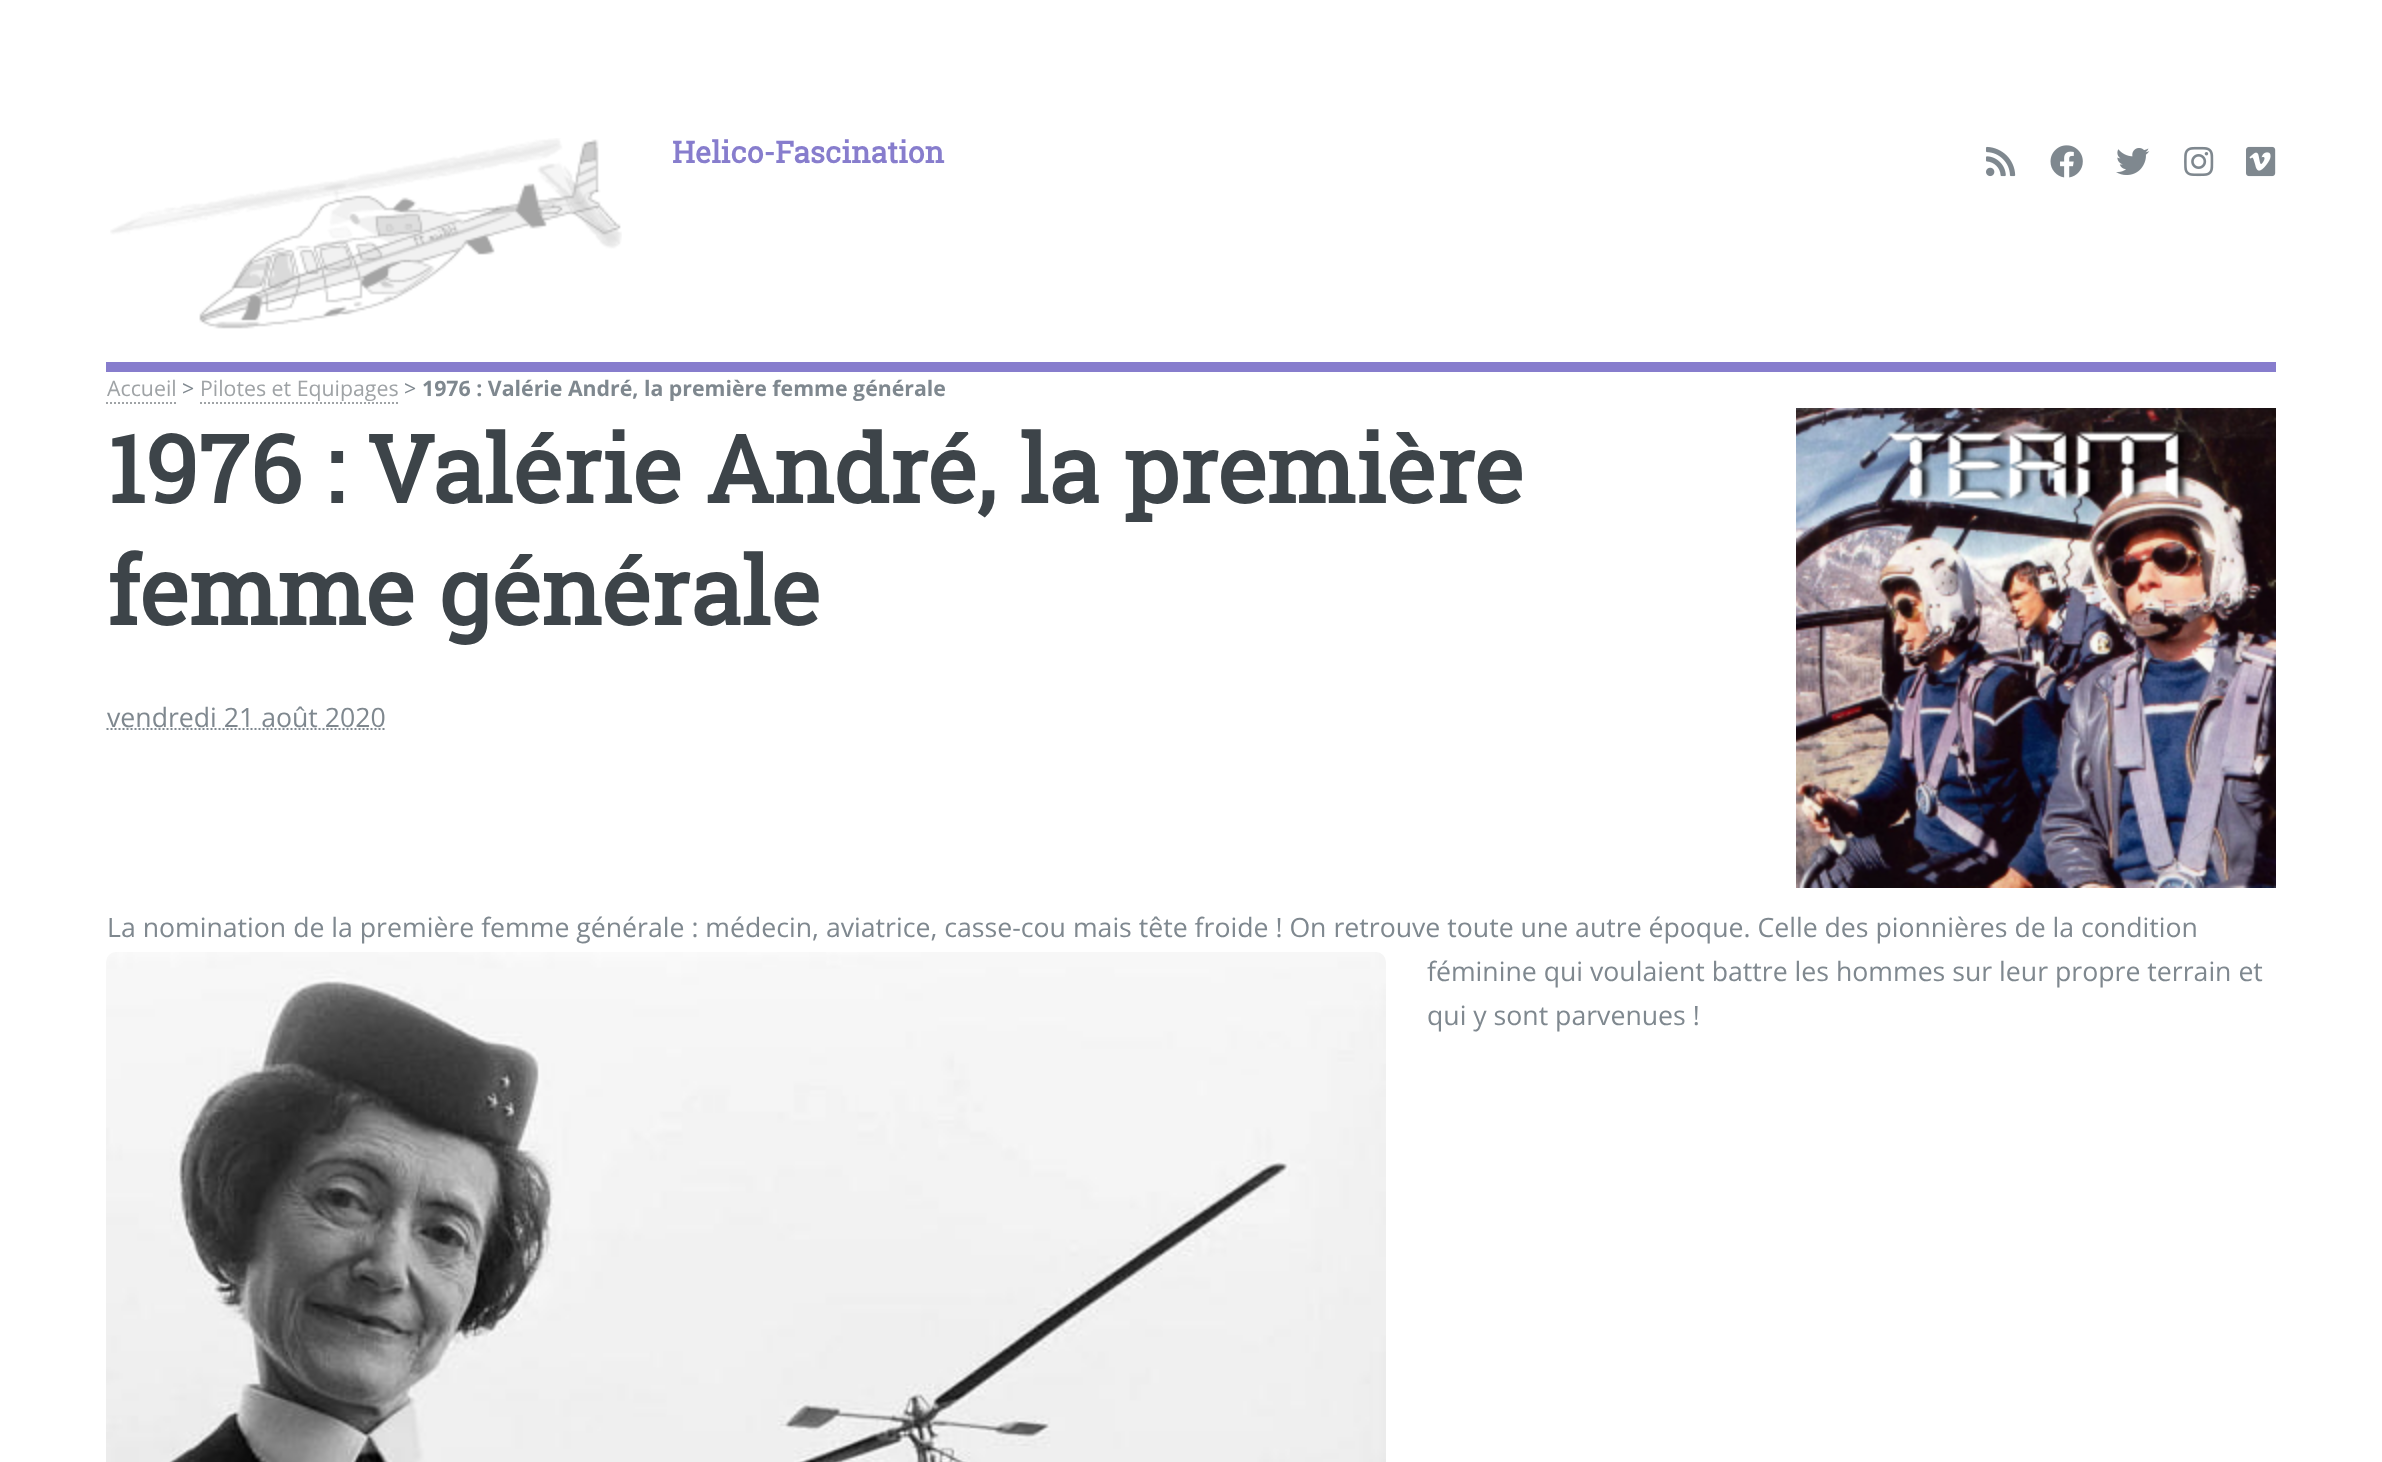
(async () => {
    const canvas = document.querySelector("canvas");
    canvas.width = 2382;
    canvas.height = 1462;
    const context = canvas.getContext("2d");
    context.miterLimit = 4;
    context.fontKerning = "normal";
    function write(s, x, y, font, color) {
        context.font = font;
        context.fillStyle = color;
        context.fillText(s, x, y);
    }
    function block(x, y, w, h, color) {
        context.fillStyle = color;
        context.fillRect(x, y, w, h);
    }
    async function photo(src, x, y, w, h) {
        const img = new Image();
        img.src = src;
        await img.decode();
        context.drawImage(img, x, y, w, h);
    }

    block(0, 0, 2382, 1462, "rgb(255, 255, 255)");
    block(106, 362, 2170, 10, "rgb(135, 125, 205)");
    await photo("media/1.png", 110, 138, 512, 191);
    write("Helico-Fascination", 672, 163, "bold 30px Roboto Slab", "rgb(135, 125, 205)");
    await photo("media/2.png", 1986, 146, 30, 31);
    await photo("media/3.png", 2050, 145, 33, 33);
    await photo("media/4.png", 2116, 148, 34, 27);
    await photo("media/5.png", 2184, 146, 30, 31);
    await photo("media/6.png", 2246, 146, 30, 31);
    write("Accueil", 107, 396, "21.3px Open Sans", "rgb(159, 163, 166)");
    context.beginPath();
    context.moveTo(106, 403);
    context.lineTo(176, 403);
    context.strokeStyle = "rgb(159, 163, 166)";
    context.lineWidth = 2;
    context.setLineDash([2, 2]);
    context.stroke();
    write(">", 182, 396, "21.3px Open Sans", "rgb(127, 136, 143)");
    write("Pilotes et Equipages", 200, 396, "21.3px Open Sans", "rgb(159, 163, 166)");
    context.beginPath();
    context.moveTo(200, 403);
    context.lineTo(398, 403);
    context.stroke();
    write(">", 404, 396, "21.3px Open Sans", "rgb(127, 136, 143)");
    write("1976 : Valérie André, la première femme générale", 422, 396, "bold 21.3px Open Sans", "rgb(127, 136, 143)");
    write("1976 : Valérie André, la première", 107, 503, "bold 93.3px Roboto Slab", "rgb(61, 68, 73)");
    await photo("media/7.png", 1796, 408, 480, 480);
    write("femme générale", 107, 625, "bold 93.3px Roboto Slab", "rgb(61, 68, 73)");
    write("vendredi 21 août 2020", 107, 727, "26.67px Open Sans", "rgb(127, 136, 143)");
    context.beginPath();
    context.moveTo(106.5, 729);
    context.lineTo(385.5, 729);
    context.strokeStyle = "rgb(127, 136, 143)";
    context.stroke();
    write("La nomination de la première femme générale : médecin, aviatrice, casse-cou mais tête froide ! On retrouve toute une autre époque. Celle des pionnières de la condition", 107, 937, "26.67px Open Sans", "rgb(127, 136, 143)");
    await photo("media/8.png", 106, 952, 1280, 510);
    write("féminine qui voulaient battre les hommes sur leur propre terrain et", 1427, 981, "26.67px Open Sans", "rgb(127, 136, 143)");
    write("qui y sont parvenues !", 1427, 1025, "26.67px Open Sans", "rgb(127, 136, 143)");
})();
